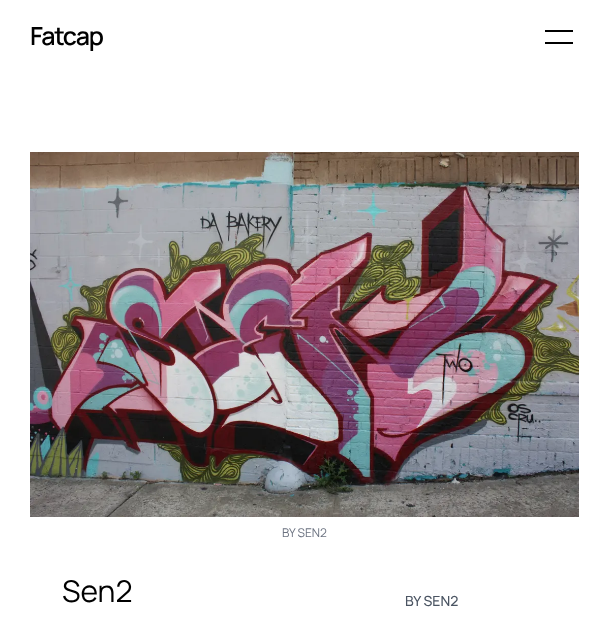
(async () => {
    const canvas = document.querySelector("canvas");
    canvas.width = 609;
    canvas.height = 628;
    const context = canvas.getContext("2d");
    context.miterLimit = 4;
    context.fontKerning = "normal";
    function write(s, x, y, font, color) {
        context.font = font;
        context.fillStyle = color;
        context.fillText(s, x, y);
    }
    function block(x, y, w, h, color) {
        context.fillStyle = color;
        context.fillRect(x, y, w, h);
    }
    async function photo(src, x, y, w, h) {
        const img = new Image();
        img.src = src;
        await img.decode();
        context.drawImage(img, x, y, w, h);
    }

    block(0, 0, 609, 628, "rgb(255, 255, 255)");
    context.letterSpacing = "-1.25px";
    write("Fatcap", 30, 45, "600 25px Manrope", "rgb(0, 0, 0)");
    block(545, 30, 28, 2, "rgb(0, 0, 0)");
    block(545, 42, 28, 2, "rgb(0, 0, 0)");
    await photo("media/1.png", 30, 152, 549, 365);
    context.letterSpacing = "0px";
    write("BY SEN2", 282, 537, "12px Manrope", "rgb(107, 114, 128)");
    write("Sen2", 62, 602, "30px Manrope", "rgb(0, 0, 0)");
    write("BY SEN2", 405, 606, "500 14px Manrope", "rgb(75, 85, 99)");
})();
